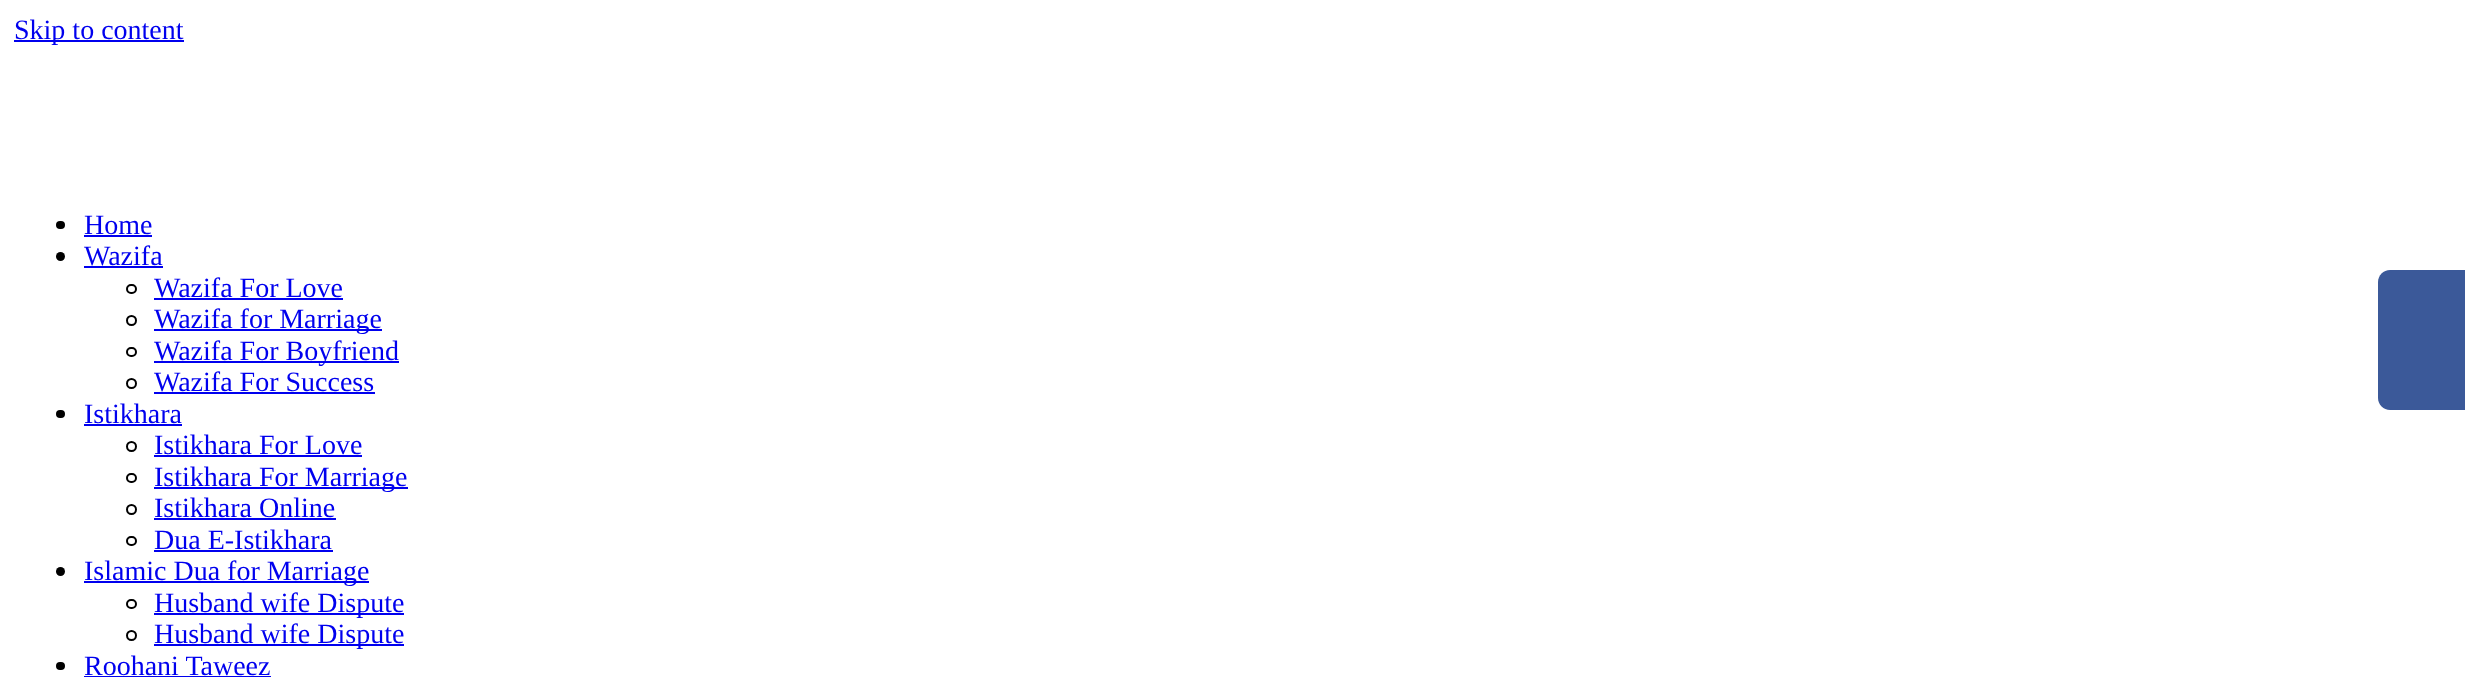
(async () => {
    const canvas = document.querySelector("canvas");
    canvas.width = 2465;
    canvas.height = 677;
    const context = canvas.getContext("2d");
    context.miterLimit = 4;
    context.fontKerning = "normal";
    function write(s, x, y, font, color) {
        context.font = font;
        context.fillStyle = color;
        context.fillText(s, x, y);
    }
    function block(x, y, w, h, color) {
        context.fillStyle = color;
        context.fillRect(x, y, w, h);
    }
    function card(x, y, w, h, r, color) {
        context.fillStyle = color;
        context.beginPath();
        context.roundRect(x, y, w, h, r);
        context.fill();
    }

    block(0, 0, 2465, 677, "rgb(255, 255, 255)");
    block(14, 40, 170, 2, "rgb(0, 0, 238)");
    write("Skip to content", 14, 39, "28px Liberation Serif", "rgb(0, 0, 238)");
    card(56, 221, 9, 8, 4, "rgb(0, 0, 0)");
    write("Home", 84, 234, "28px Liberation Serif", "rgb(0, 0, 238)");
    block(84, 235, 68, 2, "rgb(0, 0, 238)");
    context.fillStyle = "rgb(0, 0, 0)";
    context.beginPath();
    context.arc(60.5, 256.5, 4.5, 0, Math.PI * 2);
    context.fill();
    write("Wazifa", 84, 265, "28px Liberation Serif", "rgb(0, 0, 238)");
    block(84, 266, 79, 2, "rgb(0, 0, 238)");
    context.beginPath();
    context.roundRect(127, 285, 9, 8, 4);
    context.strokeStyle = "rgb(0, 0, 0)";
    context.lineWidth = 2;
    context.stroke();
    write("Wazifa For Love", 154, 297, "28px Liberation Serif", "rgb(0, 0, 238)");
    block(154, 298, 189, 2, "rgb(0, 0, 238)");
    context.beginPath();
    context.arc(131.5, 320.5, 4.5, 0, Math.PI * 2);
    context.stroke();
    block(154, 329, 228, 2, "rgb(0, 0, 238)");
    write("Wazifa for Marriage", 154, 328, "28px Liberation Serif", "rgb(0, 0, 238)");
    context.beginPath();
    context.roundRect(127, 348, 9, 8, 4);
    context.stroke();
    block(154, 361, 245, 2, "rgb(0, 0, 238)");
    write("Wazifa For Boyfriend", 154, 360, "28px Liberation Serif", "rgb(0, 0, 238)");
    context.beginPath();
    context.arc(131.5, 383.5, 4.5, 0, Math.PI * 2);
    context.stroke();
    write("Wazifa For Success", 154, 391, "28px Liberation Serif", "rgb(0, 0, 238)");
    block(154, 392, 221, 2, "rgb(0, 0, 238)");
    card(56, 410, 9, 8, 4, "rgb(0, 0, 0)");
    write("Istikhara", 84, 423, "28px Liberation Serif", "rgb(0, 0, 238)");
    block(84, 424, 98, 2, "rgb(0, 0, 238)");
    context.beginPath();
    context.arc(131.5, 446.5, 4.5, 0, Math.PI * 2);
    context.stroke();
    write("Istikhara For Love", 154, 454, "28px Liberation Serif", "rgb(0, 0, 238)");
    block(154, 455, 208, 2, "rgb(0, 0, 238)");
    context.beginPath();
    context.roundRect(127, 474, 9, 8, 4);
    context.stroke();
    block(154, 487, 254, 2, "rgb(0, 0, 238)");
    write("Istikhara For Marriage", 154, 486, "28px Liberation Serif", "rgb(0, 0, 238)");
    context.beginPath();
    context.arc(131.5, 509.5, 4.5, 0, Math.PI * 2);
    context.stroke();
    write("Istikhara Online", 154, 517, "28px Liberation Serif", "rgb(0, 0, 238)");
    block(154, 518, 182, 2, "rgb(0, 0, 238)");
    context.beginPath();
    context.roundRect(127, 537, 9, 8, 4);
    context.stroke();
    write("Dua E-Istikhara", 154, 549, "28px Liberation Serif", "rgb(0, 0, 238)");
    block(154, 550, 179, 2, "rgb(0, 0, 238)");
    context.fillStyle = "rgb(0, 0, 0)";
    context.beginPath();
    context.arc(60.5, 571.5, 4.5, 0, Math.PI * 2);
    context.fill();
    block(84, 581, 285, 2, "rgb(0, 0, 238)");
    write("Islamic Dua for Marriage", 84, 580, "28px Liberation Serif", "rgb(0, 0, 238)");
    context.beginPath();
    context.roundRect(127, 600, 9, 8, 4);
    context.stroke();
    block(154, 613, 250, 2, "rgb(0, 0, 238)");
    write("Husband wife Dispute", 154, 612, "28px Liberation Serif", "rgb(0, 0, 238)");
    context.beginPath();
    context.arc(131.5, 635.5, 4.5, 0, Math.PI * 2);
    context.stroke();
    block(154, 644, 250, 2, "rgb(0, 0, 238)");
    write("Husband wife Dispute", 154, 643, "28px Liberation Serif", "rgb(0, 0, 238)");
    card(56, 662, 9, 8, 4, "rgb(0, 0, 0)");
    write("Roohani Taweez", 84, 675, "28px Liberation Serif", "rgb(0, 0, 238)");
    block(84, 676, 187, 1, "rgb(0, 0, 238)");
    context.fillStyle = "rgb(59, 89, 153)";
    context.beginPath();
    context.moveTo(2390, 270);
    context.lineTo(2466, 270);
    context.lineTo(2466, 410);
    context.lineTo(2390, 410);
    context.bezierCurveTo(2383.5, 410, 2378, 404.5, 2378, 398);
    context.lineTo(2378, 282);
    context.bezierCurveTo(2378, 275.5, 2383.5, 270, 2390, 270);
    context.closePath();
    context.fill();
})();
